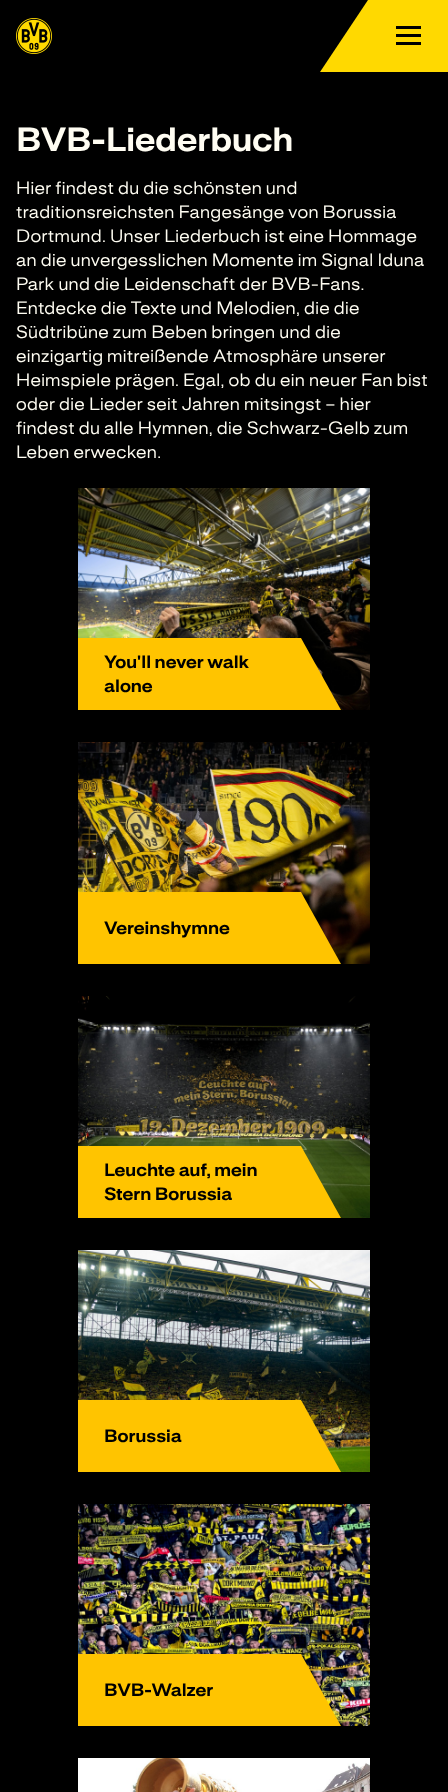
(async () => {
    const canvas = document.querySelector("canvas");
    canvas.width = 448;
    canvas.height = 1792;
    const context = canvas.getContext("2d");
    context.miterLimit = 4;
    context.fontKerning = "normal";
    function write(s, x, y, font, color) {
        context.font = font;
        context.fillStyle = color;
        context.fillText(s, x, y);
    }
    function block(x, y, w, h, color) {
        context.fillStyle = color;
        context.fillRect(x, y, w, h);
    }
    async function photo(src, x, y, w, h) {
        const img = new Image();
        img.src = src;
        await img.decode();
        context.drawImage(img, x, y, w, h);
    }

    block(0, 0, 448, 1792, "rgb(0, 0, 0)");
    await photo("media/1.png", 16, 18, 36, 36);
    context.fillStyle = "rgb(255, 217, 0)";
    context.beginPath();
    context.moveTo(320, 72);
    context.lineTo(448, 72);
    context.lineTo(448, 0);
    context.lineTo(368, 0);
    context.closePath();
    context.fill();
    block(396, 26, 25, 3, "rgb(0, 0, 0)");
    block(396, 34, 25, 3, "rgb(0, 0, 0)");
    block(396, 42, 25, 3, "rgb(0, 0, 0)");
    write("BVB-Liederbuch", 16, 151, "bold 30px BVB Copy", "rgb(255, 253, 242)");
    context.letterSpacing = "0.3px";
    write("Hier findest du die schönsten und", 16, 194, "16px BVB Copy", "rgb(255, 253, 242)");
    write("traditionsreichsten Fangesänge von Borussia", 16, 218, "16px BVB Copy", "rgb(255, 253, 242)");
    write("Dortmund. Unser Liederbuch ist eine Hommage", 16, 242, "16px BVB Copy", "rgb(255, 253, 242)");
    write("an die unvergesslichen Momente im Signal Iduna", 16, 266, "16px BVB Copy", "rgb(255, 253, 242)");
    write("Park und die Leidenschaft der BVB-Fans.", 16, 290, "16px BVB Copy", "rgb(255, 253, 242)");
    write("Entdecke die Texte und Melodien, die die", 16, 314, "16px BVB Copy", "rgb(255, 253, 242)");
    write("Südtribüne zum Beben bringen und die", 16, 338, "16px BVB Copy", "rgb(255, 253, 242)");
    write("einzigartig mitreißende Atmosphäre unserer", 16, 362, "16px BVB Copy", "rgb(255, 253, 242)");
    write("Heimspiele prägen. Egal, ob du ein neuer Fan bist", 16, 386, "16px BVB Copy", "rgb(255, 253, 242)");
    write("oder die Lieder seit Jahren mitsingst – hier", 16, 410, "16px BVB Copy", "rgb(255, 253, 242)");
    write("findest du alle Hymnen, die Schwarz-Gelb zum", 16, 434, "16px BVB Copy", "rgb(255, 253, 242)");
    write("Leben erwecken.", 16, 458, "16px BVB Copy", "rgb(255, 253, 242)");
    await photo("media/2.png", 78, 488, 292, 222);
    context.fillStyle = "rgb(255, 196, 0)";
    context.beginPath();
    context.moveTo(78, 638);
    context.lineTo(78, 710);
    context.lineTo(341, 710);
    context.lineTo(301, 638);
    context.closePath();
    context.fill();
    context.letterSpacing = "0px";
    write("You'll never walk", 104, 668, "bold 16px BVB Copy", "rgb(0, 0, 0)");
    write("alone", 104, 692, "bold 16px BVB Copy", "rgb(0, 0, 0)");
    await photo("media/3.png", 78, 742, 292, 222);
    context.fillStyle = "rgb(255, 196, 0)";
    context.beginPath();
    context.moveTo(78, 892);
    context.lineTo(78, 964);
    context.lineTo(341, 964);
    context.lineTo(301, 892);
    context.closePath();
    context.fill();
    write("Vereinshymne", 104, 934, "bold 16px BVB Copy", "rgb(0, 0, 0)");
    await photo("media/4.png", 78, 996, 292, 222);
    context.fillStyle = "rgb(255, 196, 0)";
    context.beginPath();
    context.moveTo(78, 1146);
    context.lineTo(78, 1218);
    context.lineTo(341, 1218);
    context.lineTo(301, 1146);
    context.closePath();
    context.fill();
    write("Leuchte auf, mein", 104, 1176, "bold 16px BVB Copy", "rgb(0, 0, 0)");
    write("Stern Borussia", 104, 1200, "bold 16px BVB Copy", "rgb(0, 0, 0)");
    await photo("media/5.png", 78, 1250, 292, 222);
    context.fillStyle = "rgb(255, 196, 0)";
    context.beginPath();
    context.moveTo(78, 1400);
    context.lineTo(78, 1472);
    context.lineTo(341, 1472);
    context.lineTo(301, 1400);
    context.closePath();
    context.fill();
    write("Borussia", 104, 1442, "bold 16px BVB Copy", "rgb(0, 0, 0)");
    await photo("media/6.png", 78, 1504, 292, 222);
    context.fillStyle = "rgb(255, 196, 0)";
    context.beginPath();
    context.moveTo(78, 1654);
    context.lineTo(78, 1726);
    context.lineTo(341, 1726);
    context.lineTo(301, 1654);
    context.closePath();
    context.fill();
    write("BVB-Walzer", 104, 1696, "bold 16px BVB Copy", "rgb(0, 0, 0)");
    await photo("media/7.png", 78, 1758, 292, 34);
})();
